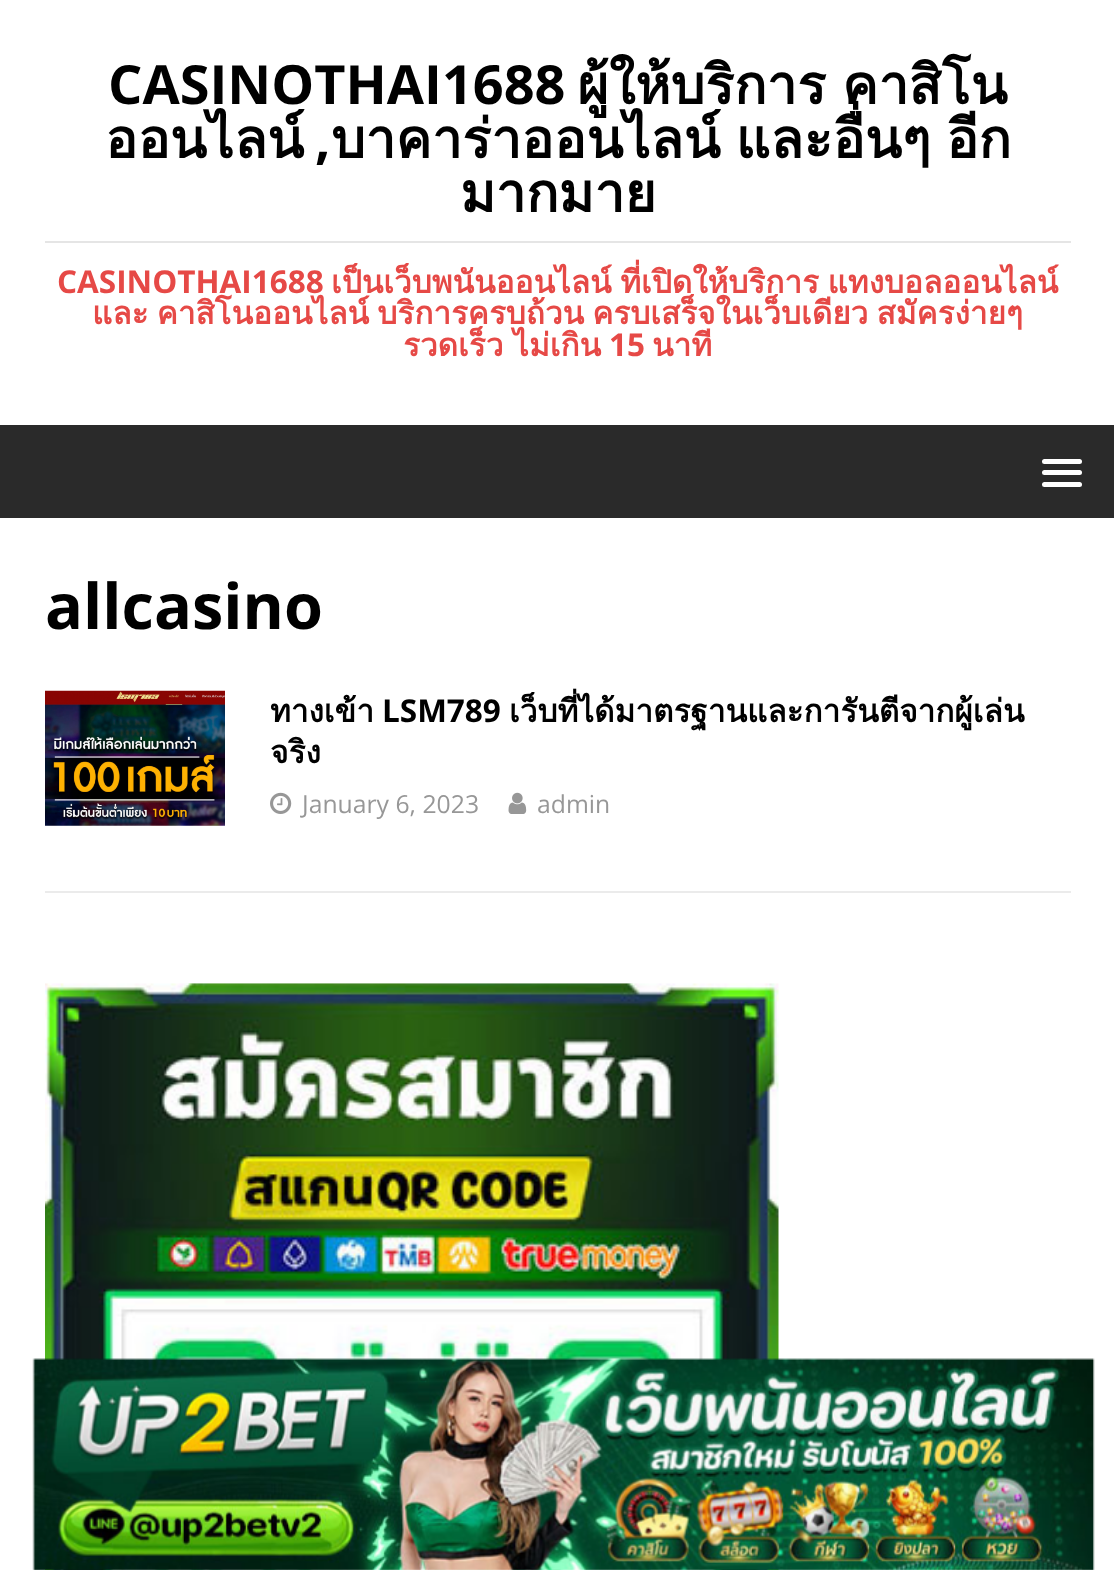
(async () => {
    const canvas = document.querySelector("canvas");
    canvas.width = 1114;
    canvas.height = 1570;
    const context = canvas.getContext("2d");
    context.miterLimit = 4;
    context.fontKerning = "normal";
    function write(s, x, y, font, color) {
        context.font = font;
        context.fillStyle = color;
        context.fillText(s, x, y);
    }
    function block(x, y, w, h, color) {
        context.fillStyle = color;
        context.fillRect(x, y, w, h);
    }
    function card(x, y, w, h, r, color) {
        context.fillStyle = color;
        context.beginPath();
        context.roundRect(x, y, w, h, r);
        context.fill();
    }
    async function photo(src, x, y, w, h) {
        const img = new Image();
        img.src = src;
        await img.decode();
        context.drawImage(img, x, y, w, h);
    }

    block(0, 0, 1114, 1570, "rgb(255, 255, 255)");
    write("CASINOTHAI1688", 108, 104, "bold 54px Open Sans", "rgb(0, 0, 0)");
    context.wordSpacing = "-2px";
    write("ผู้ให้บริการ คาสิโน", 577, 104, "bold 54px Loma", "rgb(0, 0, 0)");
    context.wordSpacing = "0px";
    write("ออนไลน์", 105, 158, "bold 54px Loma", "rgb(0, 0, 0)");
    write(",", 315, 158, "bold 54px Open Sans", "rgb(0, 0, 0)");
    context.wordSpacing = "-3px";
    write("บาคาร่าออนไลน์ และอื่นๆ อีก", 331, 158, "bold 54px Loma", "rgb(0, 0, 0)");
    context.wordSpacing = "0px";
    write("มากมาย", 460, 212, "bold 54px Loma", "rgb(0, 0, 0)");
    block(45, 241, 1026, 2, "rgb(229, 229, 229)");
    write("CASINOTHAI1688", 57, 293, "bold 31.5px Open Sans", "rgb(230, 73, 70)");
    context.wordSpacing = "-2px";
    write("เป็นเว็บพนันออนไลน์ ที่เปิดให้บริการ แทงบอลออนไลน์", 331, 293, "bold 31.5px Loma", "rgb(230, 73, 70)");
    context.wordSpacing = "-2.5px";
    write("และ คาสิโนออนไลน์ บริการครบถ้วน ครบเสร็จในเว็บเดียว สมัครง่ายๆ", 92, 324, "bold 31.5px Loma", "rgb(230, 73, 70)");
    context.wordSpacing = "-1px";
    write("รวดเร็ว ไม่เกิน", 403, 356, "bold 31.5px Loma", "rgb(230, 73, 70)");
    context.wordSpacing = "0px";
    write("15", 609, 356, "bold 31.5px Open Sans", "rgb(230, 73, 70)");
    write("นาที", 652, 356, "bold 31.5px Loma", "rgb(230, 73, 70)");
    block(0, 425, 1114, 93, "rgb(42, 42, 42)");
    card(1042, 459, 40, 5, 2.5, "rgb(255, 255, 255)");
    card(1042, 470, 40, 5, 2.5, "rgb(255, 255, 255)");
    card(1042, 482, 40, 5, 2.5, "rgb(255, 255, 255)");
    write("allcasino", 45, 629, "bold 63px Open Sans", "rgb(0, 0, 0)");
    block(45, 891, 1026, 2, "rgb(235, 235, 235)");
    await photo("media/1.png", 45, 690, 180, 136);
    write("ทางเข้า", 270, 722, "bold 31.5px Loma", "rgb(0, 0, 0)");
    write("LSM789", 382, 722, "bold 31.5px Open Sans", "rgb(0, 0, 0)");
    write("เว็บที่ได้มาตรฐานและการันตีจากผู้เล่น", 509, 722, "bold 31.5px Loma", "rgb(0, 0, 0)");
    write("จริง", 270, 763, "bold 31.5px Loma", "rgb(0, 0, 0)");
    await photo("media/2.png", 270, 792, 22, 22);
    write("January 6, 2023", 302, 813, "24.75px Open Sans", "rgb(151, 151, 151)");
    await photo("media/3.png", 508, 792, 19, 22);
    write("admin", 537, 813, "24.75px Open Sans", "rgb(151, 151, 151)");
    await photo("media/4.png", 45, 983, 734, 587);
    await photo("media/5.png", 32, 1358, 1063, 212);
})();
